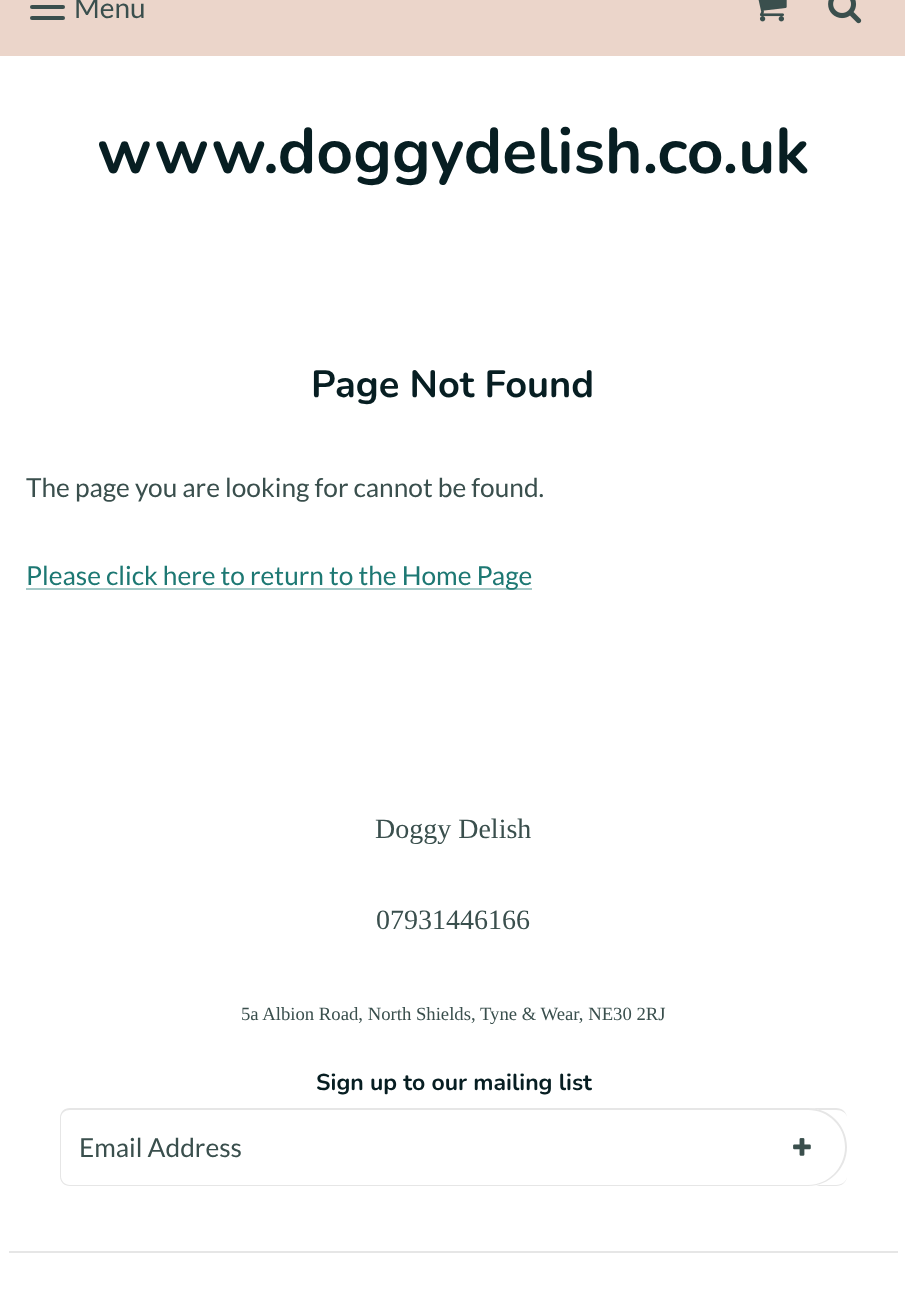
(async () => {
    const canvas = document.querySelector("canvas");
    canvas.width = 905;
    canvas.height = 1311;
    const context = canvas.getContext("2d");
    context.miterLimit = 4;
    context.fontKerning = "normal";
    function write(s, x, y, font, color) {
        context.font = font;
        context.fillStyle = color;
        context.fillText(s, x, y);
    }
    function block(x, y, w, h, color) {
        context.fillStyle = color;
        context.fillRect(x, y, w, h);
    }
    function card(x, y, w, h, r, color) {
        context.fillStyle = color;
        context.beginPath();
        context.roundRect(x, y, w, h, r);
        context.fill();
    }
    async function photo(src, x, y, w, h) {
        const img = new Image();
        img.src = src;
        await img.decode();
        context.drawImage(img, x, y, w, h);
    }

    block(0, 0, 905, 1311, "rgb(255, 255, 255)");
    block(0, 0, 905, 56, "rgb(235, 213, 202)");
    card(30, 5, 35, 4, 2, "rgb(58, 79, 77)");
    card(30, 16, 35, 4, 2, "rgb(58, 79, 77)");
    write("Menu", 74, 18, "28px Lato", "rgb(58, 79, 77)");
    await photo("media/1.png", 758, 0, 29, 22);
    await photo("media/2.png", 828, 0, 34, 24);
    write("www.doggydelish.co.uk", 97, 173, "bold 64.1px Nunito", "rgb(7, 30, 34)");
    write("Page Not Found", 311, 397, "bold 38px Nunito", "rgb(7, 30, 34)");
    write("The page you are looking for cannot be found.", 26, 497, "26.25px Lato", "rgb(58, 79, 77)");
    block(26, 588, 506, 2, "rgb(165, 201, 199)");
    write("Please click here to return to the Home Page", 26, 585, "26.25px Lato", "rgb(29, 120, 115)");
    write("Doggy Delish", 375, 838, "28px Liberation Serif", "rgb(58, 79, 77)");
    write("07931446166", 376, 929, "28px Liberation Serif", "rgb(58, 79, 77)");
    write("5a Albion Road, North Shields, Tyne & Wear, NE30 2RJ", 241, 1020, "18.7px Liberation Serif", "rgb(58, 79, 77)");
    block(9, 1251, 889, 2, "rgb(230, 230, 230)");
    write("Sign up to our mailing list", 316, 1090, "bold 23px Nunito", "rgb(7, 30, 34)");
    context.fillStyle = "rgb(230, 230, 230)";
    context.beginPath();
    context.moveTo(70, 1108);
    context.lineTo(836, 1108);
    context.bezierCurveTo(842, 1108, 847, 1112, 847, 1118);
    context.lineTo(847, 1176);
    context.bezierCurveTo(847, 1182, 842, 1186, 836, 1186);
    context.lineTo(70, 1186);
    context.bezierCurveTo(64, 1186, 60, 1182, 60, 1176);
    context.lineTo(60, 1118);
    context.bezierCurveTo(60, 1112, 64, 1108, 70, 1108);
    context.closePath();
    context.moveTo(70, 1110);
    context.lineTo(836, 1110);
    context.bezierCurveTo(842, 1110, 847, 1113, 847, 1118);
    context.lineTo(847, 1176);
    context.bezierCurveTo(847, 1181, 842, 1185, 836, 1185);
    context.lineTo(70, 1185);
    context.bezierCurveTo(65, 1185, 61, 1181, 61, 1176);
    context.lineTo(61, 1118);
    context.bezierCurveTo(61, 1113, 65, 1110, 70, 1110);
    context.closePath();
    context.fill("evenodd");
    write("Email Address", 79, 1157, "26.25px Lato", "rgb(58, 79, 77)");
    context.fillStyle = "rgb(255, 255, 255)";
    context.beginPath();
    context.roundRect(760, 1108, 87, 79, [0, 39.5, 39.5, 0]);
    context.fill();
    context.fillStyle = "rgb(230, 230, 230)";
    context.beginPath();
    context.moveTo(760, 1108);
    context.lineTo(808, 1108);
    context.bezierCurveTo(829, 1108, 847, 1125, 847, 1147);
    context.bezierCurveTo(847, 1169, 829, 1186, 808, 1186);
    context.lineTo(760, 1186);
    context.closePath();
    context.moveTo(760, 1110);
    context.lineTo(808, 1110);
    context.bezierCurveTo(828, 1110, 845, 1126, 845, 1147);
    context.bezierCurveTo(845, 1168, 828, 1185, 808, 1185);
    context.lineTo(760, 1185);
    context.closePath();
    context.fill("evenodd");
    await photo("media/3.png", 793, 1138, 18, 18);
})();
